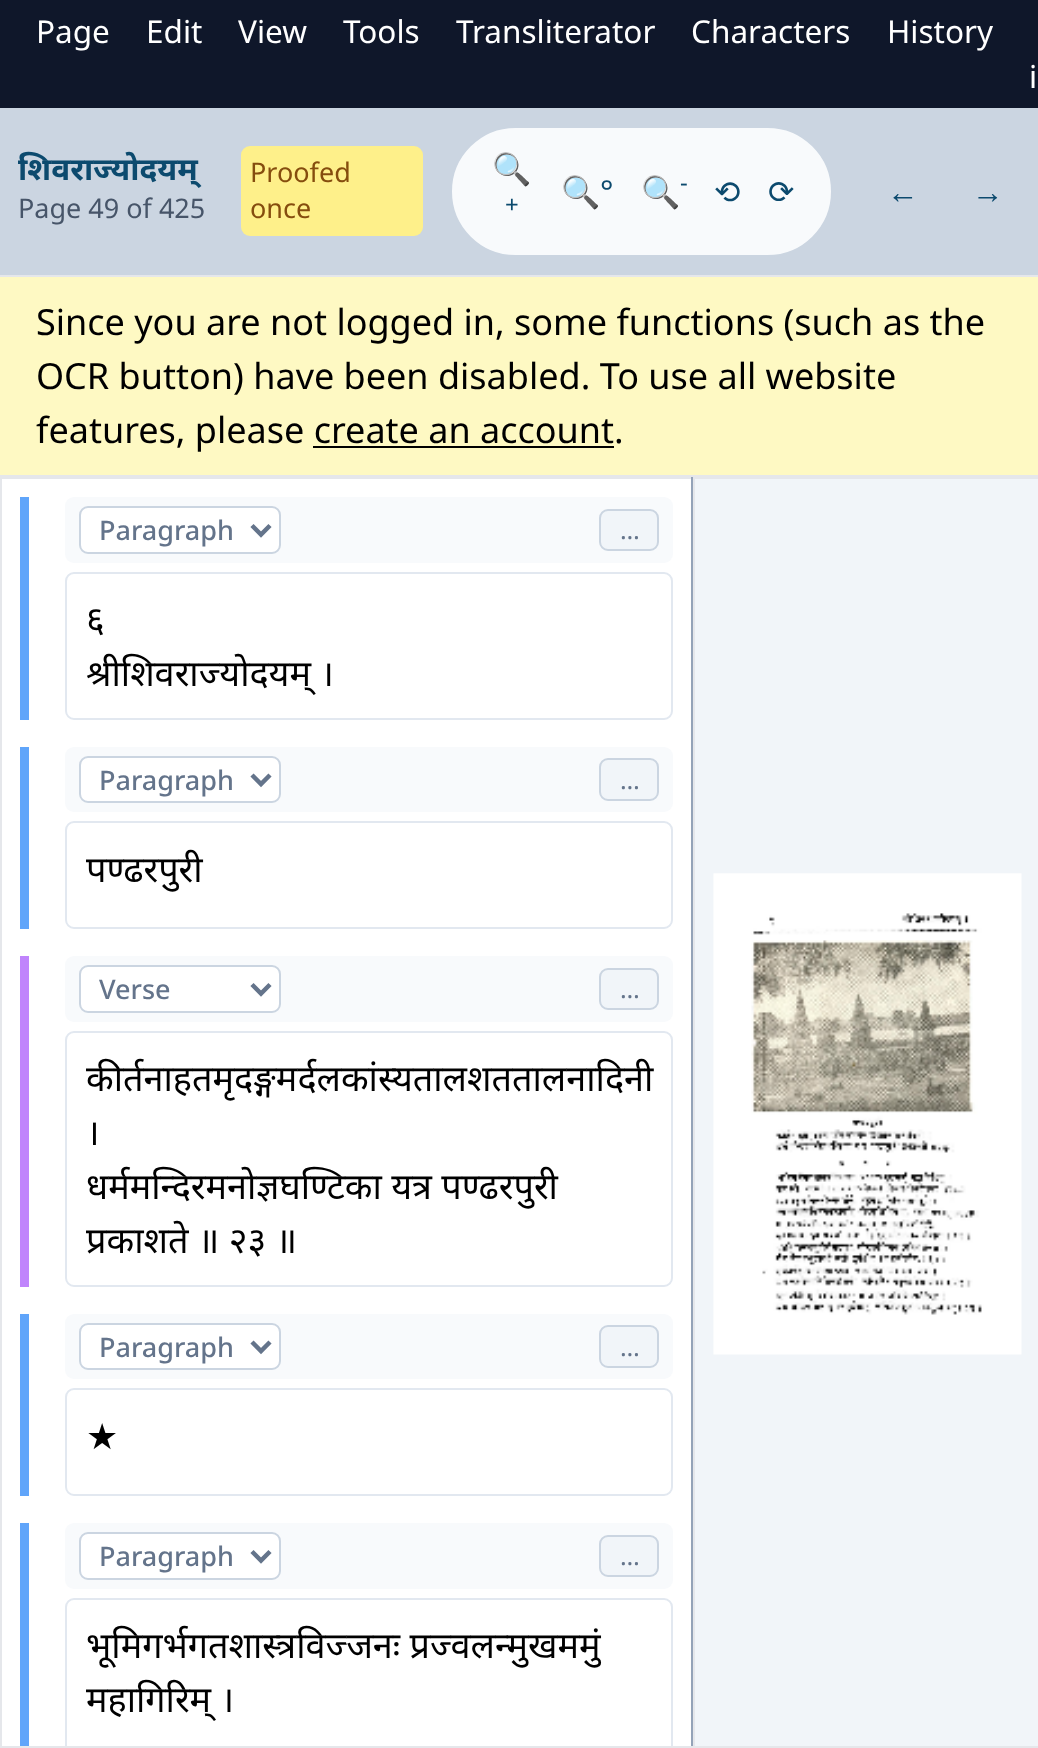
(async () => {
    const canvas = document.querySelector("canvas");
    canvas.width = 1038;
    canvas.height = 1748;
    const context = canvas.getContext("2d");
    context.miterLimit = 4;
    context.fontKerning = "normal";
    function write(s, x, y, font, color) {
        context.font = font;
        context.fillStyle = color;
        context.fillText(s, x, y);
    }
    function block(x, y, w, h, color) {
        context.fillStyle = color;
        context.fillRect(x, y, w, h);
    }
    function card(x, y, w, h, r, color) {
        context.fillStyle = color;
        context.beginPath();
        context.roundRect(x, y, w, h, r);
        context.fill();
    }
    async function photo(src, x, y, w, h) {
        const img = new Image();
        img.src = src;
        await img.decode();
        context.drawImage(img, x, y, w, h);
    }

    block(0, 0, 1038, 1748, "rgb(255, 255, 255)");
    block(0, 0, 1038, 108, "rgb(15, 23, 42)");
    write("Page", 36, 43, "31.5px Noto Sans", "rgb(255, 255, 255)");
    write("Edit", 146, 43, "31.5px Noto Sans", "rgb(255, 255, 255)");
    write("View", 238, 43, "31.5px Noto Sans", "rgb(255, 255, 255)");
    write("Tools", 343, 43, "31.5px Noto Sans", "rgb(255, 255, 255)");
    write("Transliterator", 456, 43, "31.5px Noto Sans", "rgb(255, 255, 255)");
    write("Characters", 691, 43, "31.5px Noto Sans", "rgb(255, 255, 255)");
    write("History", 887, 43, "31.5px Noto Sans", "rgb(255, 255, 255)");
    write("i", 1029, 88, "31.5px Noto Sans", "rgb(255, 255, 255)");
    block(0, 108, 1038, 167, "rgb(203, 213, 225)");
    block(0, 275, 1038, 2, "rgb(229, 231, 235)");
    write("शिवराज्योदयम्", 18, 180, "bold 31.5px Noto Sans", "rgb(12, 74, 110)");
    write("Page 49 of 425", 18, 218, "27px Noto Sans", "rgb(71, 85, 105)");
    card(241, 146, 182, 90, 9, "rgb(254, 240, 138)");
    write("Proofed", 250, 182, "27px Noto Sans", "rgb(133, 77, 14)");
    write("once", 250, 218, "27px Noto Sans", "rgb(133, 77, 14)");
    context.fillStyle = "rgb(248, 250, 252)";
    context.beginPath();
    context.roundRect(451, 127, 381, 129, 64.5);
    context.fill();
    context.strokeStyle = "rgb(203, 213, 225)";
    context.lineWidth = 2;
    context.stroke();
    write("🔍", 492, 180, "31.5px Noto Color Emoji", "rgb(12, 74, 110)");
    write("+", 505, 213, "24px Noto Sans", "rgb(12, 74, 110)");
    write("🔍", 561, 203, "31.5px Noto Color Emoji", "rgb(12, 74, 110)");
    write("°", 600, 203, "31.5px Noto Sans", "rgb(12, 74, 110)");
    write("🔍", 641, 203, "31.5px Noto Color Emoji", "rgb(12, 74, 110)");
    write("-", 680, 191, "24px Noto Sans", "rgb(12, 74, 110)");
    write("⟲", 714, 203, "31.5px DejaVu Sans", "rgb(12, 74, 110)");
    write("⟳", 768, 203, "31.5px DejaVu Sans", "rgb(12, 74, 110)");
    write("←", 887, 203, "31.5px Liberation Sans", "rgb(12, 74, 110)");
    write("→", 972, 203, "31.5px Liberation Sans", "rgb(12, 74, 110)");
    block(0, 277, 1038, 198, "rgb(254, 249, 195)");
    block(0, 475, 1038, 2, "rgb(229, 231, 235)");
    write("Since you are not logged in, some functions (such as the", 36, 335, "36px Noto Sans", "rgb(0, 0, 0)");
    write("OCR button) have been disabled. To use all website", 36, 389, "36px Noto Sans", "rgb(0, 0, 0)");
    write("features, please create an account.", 36, 443, "36px Noto Sans", "rgb(0, 0, 0)");
    block(313, 446, 301, 2, "rgb(0, 0, 0)");
    block(0, 477, 693, 2, "rgb(229, 231, 235)");
    block(691, 477, 2, 1271, "rgb(148, 163, 184)");
    block(0, 1746, 693, 2, "rgb(229, 231, 235)");
    block(0, 477, 2, 1271, "rgb(229, 231, 235)");
    block(20, 497, 9, 223, "rgb(96, 165, 250)");
    card(65, 497, 608, 66, 9, "rgb(248, 250, 252)");
    context.fillStyle = "rgb(255, 255, 255)";
    context.beginPath();
    context.roundRect(80, 507, 200, 46, 8);
    context.fill();
    context.stroke();
    context.beginPath();
    context.moveTo(252, 525.5);
    context.lineTo(261, 534.5);
    context.lineTo(270, 525.5);
    context.strokeStyle = "rgb(100, 116, 139)";
    context.lineWidth = 4.5;
    context.stroke();
    write("Paragraph", 99, 540, "500 27px Noto Sans", "rgb(100, 116, 139)");
    context.fillStyle = "rgb(241, 245, 249)";
    context.beginPath();
    context.roundRect(600, 510, 58, 40, 8);
    context.fill();
    context.strokeStyle = "rgb(203, 213, 225)";
    context.lineWidth = 2;
    context.stroke();
    write("…", 620, 539, "25px Noto Sans", "rgb(100, 116, 139)");
    context.beginPath();
    context.roundRect(66, 573, 606, 146, 8);
    context.strokeStyle = "rgb(226, 232, 240)";
    context.stroke();
    write("६", 86, 632, "36px Noto Sans", "rgb(0, 0, 0)");
    write("श्रीशिवराज्योदयम् ।", 86, 686, "36px Noto Sans", "rgb(0, 0, 0)");
    block(20, 747, 9, 182, "rgb(96, 165, 250)");
    card(65, 747, 608, 65, 9, "rgb(248, 250, 252)");
    context.fillStyle = "rgb(255, 255, 255)";
    context.beginPath();
    context.roundRect(80, 757, 200, 45, 8);
    context.fill();
    context.strokeStyle = "rgb(203, 213, 225)";
    context.stroke();
    context.beginPath();
    context.moveTo(252, 775);
    context.lineTo(261, 784);
    context.lineTo(270, 775);
    context.strokeStyle = "rgb(100, 116, 139)";
    context.lineWidth = 4.5;
    context.stroke();
    write("Paragraph", 99, 790, "500 27px Noto Sans", "rgb(100, 116, 139)");
    context.fillStyle = "rgb(241, 245, 249)";
    context.beginPath();
    context.roundRect(600, 759, 58, 41, 8);
    context.fill();
    context.strokeStyle = "rgb(203, 213, 225)";
    context.lineWidth = 2;
    context.stroke();
    write("…", 620, 789, "25px Noto Sans", "rgb(100, 116, 139)");
    context.beginPath();
    context.roundRect(66, 822, 606, 106, 8);
    context.strokeStyle = "rgb(226, 232, 240)";
    context.stroke();
    write("पण्ढरपुरी", 86, 882, "36px Noto Sans", "rgb(0, 0, 0)");
    block(20, 956, 9, 331, "rgb(192, 132, 252)");
    card(65, 956, 608, 66, 9, "rgb(248, 250, 252)");
    context.fillStyle = "rgb(255, 255, 255)";
    context.beginPath();
    context.roundRect(80, 966, 200, 46, 8);
    context.fill();
    context.strokeStyle = "rgb(203, 213, 225)";
    context.stroke();
    context.beginPath();
    context.moveTo(252, 984.5);
    context.lineTo(261, 993.5);
    context.lineTo(270, 984.5);
    context.strokeStyle = "rgb(100, 116, 139)";
    context.lineWidth = 4.5;
    context.stroke();
    write("Verse", 99, 999, "500 27px Noto Sans", "rgb(100, 116, 139)");
    context.fillStyle = "rgb(241, 245, 249)";
    context.beginPath();
    context.roundRect(600, 969, 58, 40, 8);
    context.fill();
    context.strokeStyle = "rgb(203, 213, 225)";
    context.lineWidth = 2;
    context.stroke();
    write("…", 620, 998, "25px Noto Sans", "rgb(100, 116, 139)");
    context.beginPath();
    context.roundRect(66, 1032, 606, 254, 8);
    context.strokeStyle = "rgb(226, 232, 240)";
    context.stroke();
    write("कीर्तनाहतमृदङ्गमर्दलकांस्यतालशततालनादिनी", 86, 1091, "36px Noto Sans", "rgb(0, 0, 0)");
    write("।", 86, 1145, "36px Noto Sans", "rgb(0, 0, 0)");
    write("धर्ममन्दिरमनोज्ञघण्टिका यत्र पण्ढरपुरी", 86, 1199, "36px Noto Sans", "rgb(0, 0, 0)");
    write("प्रकाशते ॥ २३ ॥", 86, 1253, "36px Noto Sans", "rgb(0, 0, 0)");
    block(20, 1314, 9, 182, "rgb(96, 165, 250)");
    card(65, 1314, 608, 65, 9, "rgb(248, 250, 252)");
    context.fillStyle = "rgb(255, 255, 255)";
    context.beginPath();
    context.roundRect(80, 1324, 200, 45, 8);
    context.fill();
    context.strokeStyle = "rgb(203, 213, 225)";
    context.stroke();
    context.beginPath();
    context.moveTo(252, 1342);
    context.lineTo(261, 1351);
    context.lineTo(270, 1342);
    context.strokeStyle = "rgb(100, 116, 139)";
    context.lineWidth = 4.5;
    context.stroke();
    write("Paragraph", 99, 1357, "500 27px Noto Sans", "rgb(100, 116, 139)");
    context.fillStyle = "rgb(241, 245, 249)";
    context.beginPath();
    context.roundRect(600, 1326, 58, 41, 8);
    context.fill();
    context.strokeStyle = "rgb(203, 213, 225)";
    context.lineWidth = 2;
    context.stroke();
    write("…", 620, 1356, "25px Noto Sans", "rgb(100, 116, 139)");
    context.beginPath();
    context.roundRect(66, 1389, 606, 106, 8);
    context.strokeStyle = "rgb(226, 232, 240)";
    context.stroke();
    write("★", 86, 1449, "36px DejaVu Sans", "rgb(0, 0, 0)");
    block(20, 1523, 9, 223, "rgb(96, 165, 250)");
    card(65, 1523, 608, 66, 9, "rgb(248, 250, 252)");
    context.fillStyle = "rgb(255, 255, 255)";
    context.beginPath();
    context.roundRect(80, 1533, 200, 46, 8);
    context.fill();
    context.strokeStyle = "rgb(203, 213, 225)";
    context.stroke();
    context.beginPath();
    context.moveTo(252, 1551.5);
    context.lineTo(261, 1560.5);
    context.lineTo(270, 1551.5);
    context.strokeStyle = "rgb(100, 116, 139)";
    context.lineWidth = 4.5;
    context.stroke();
    write("Paragraph", 99, 1566, "500 27px Noto Sans", "rgb(100, 116, 139)");
    context.fillStyle = "rgb(241, 245, 249)";
    context.beginPath();
    context.roundRect(600, 1536, 58, 40, 8);
    context.fill();
    context.strokeStyle = "rgb(203, 213, 225)";
    context.lineWidth = 2;
    context.stroke();
    write("…", 620, 1565, "25px Noto Sans", "rgb(100, 116, 139)");
    context.save();
    context.beginPath();
    context.rect(2, 479, 689, 1267);
    context.clip();
    context.beginPath();
    context.roundRect(66, 1599, 606, 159, 8);
    context.strokeStyle = "rgb(226, 232, 240)";
    context.stroke();
    context.restore();
    write("भूमिगर्भगतशास्त्रविज्जनः प्रज्वलन्मुखममुं", 86, 1658, "36px Noto Sans", "rgb(0, 0, 0)");
    write("महागिरिम् ।", 86, 1712, "36px Noto Sans", "rgb(0, 0, 0)");
    context.fillStyle = "rgb(241, 245, 249)";
    context.beginPath();
    context.rect(694, 478, 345, 1269);
    context.fill();
    context.strokeStyle = "rgb(229, 231, 235)";
    context.stroke();
    await photo("media/1.png", 713, 873, 309, 482);
})();
